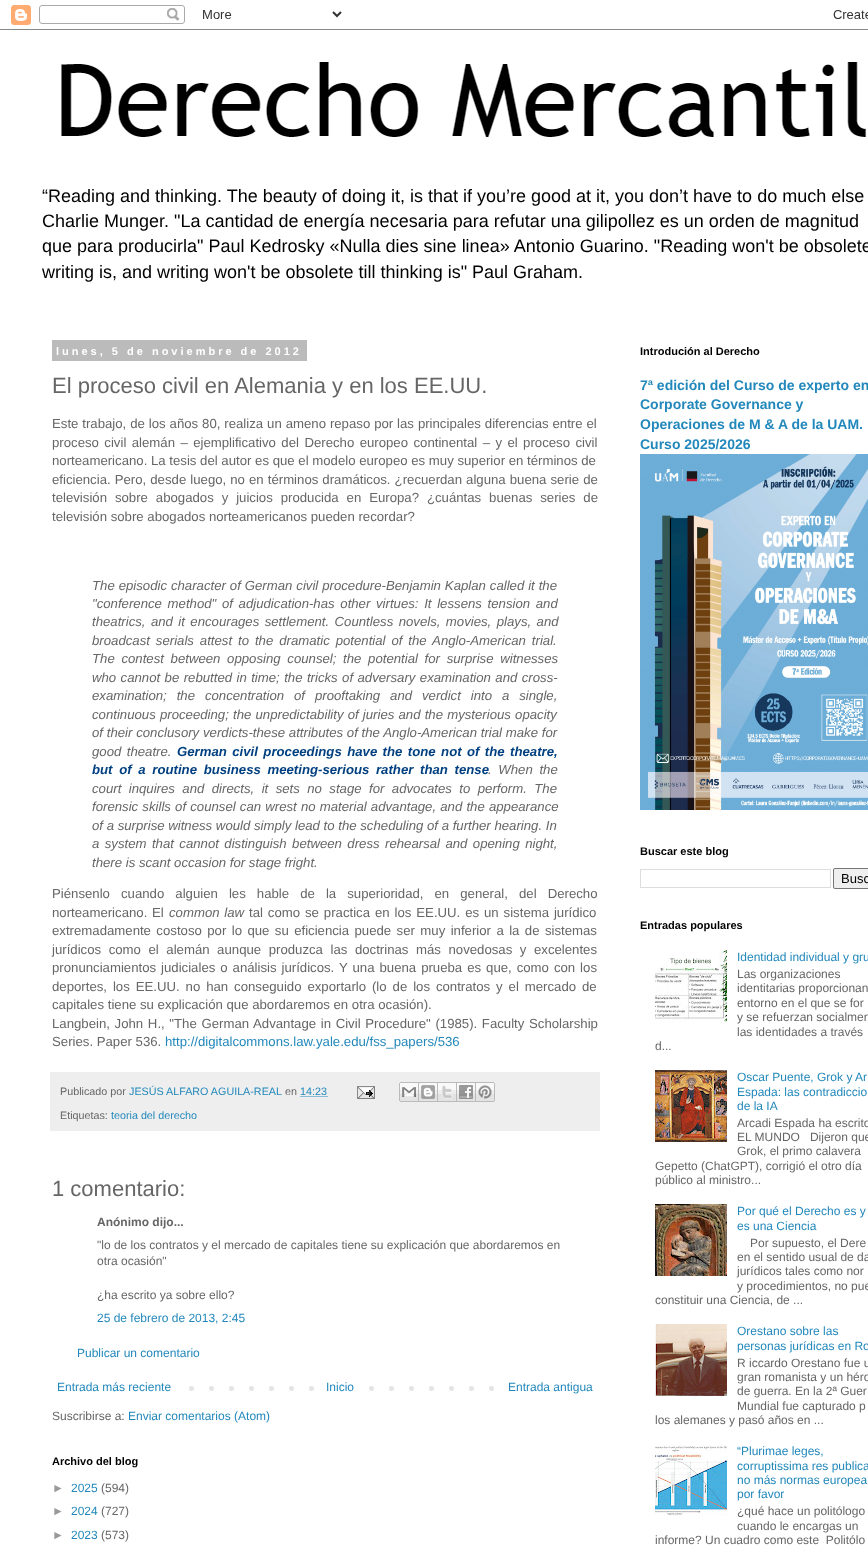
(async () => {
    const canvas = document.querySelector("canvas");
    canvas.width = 868;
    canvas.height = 1553;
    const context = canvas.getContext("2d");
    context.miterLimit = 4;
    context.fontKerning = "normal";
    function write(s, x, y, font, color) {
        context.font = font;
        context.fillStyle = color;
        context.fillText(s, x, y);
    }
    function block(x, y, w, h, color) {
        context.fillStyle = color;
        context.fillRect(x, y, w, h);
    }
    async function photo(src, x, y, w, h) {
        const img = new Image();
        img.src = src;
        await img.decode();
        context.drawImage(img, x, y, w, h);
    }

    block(0, 0, 868, 1553, "rgb(255, 255, 255)");
    await photo("media/1.png", 0, 5, 868, 25);
    await photo("media/2.png", 61, 62, 806, 75);
    write("“Reading and thinking. The beauty of doing it, is that if you’re good at it, you don’t have to do much else", 42, 202, "18px Liberation Sans", "rgb(0, 0, 0)");
    write("Charlie Munger. \"La cantidad de energía necesaria para refutar una gilipollez es un orden de magnitud", 42, 227, "18px Liberation Sans", "rgb(0, 0, 0)");
    write("que para producirla\" Paul Kedrosky «Nulla dies sine linea» Antonio Guarino. \"Reading won't be obsolete", 42, 252, "18px Liberation Sans", "rgb(0, 0, 0)");
    write("writing is, and writing won't be obsolete till thinking is\" Paul Graham.", 42, 278, "18px Liberation Sans", "rgb(0, 0, 0)");
    block(52, 340, 255, 21, "rgb(187, 187, 187)");
    context.letterSpacing = "3px";
    write("lunes, 5 de noviembre de 2012", 56, 355, "bold 11px Liberation Sans", "rgb(255, 255, 255)");
    context.letterSpacing = "0px";
    write("El proceso civil en Alemania y en los EE.UU.", 52, 393, "22px Liberation Sans", "rgb(102, 102, 102)");
    context.wordSpacing = "0.25px";
    write("Este trabajo, de los años 80, realiza un ameno repaso por las principales diferencias entre el", 52, 428, "13.2px Liberation Sans", "rgb(102, 102, 102)");
    context.wordSpacing = "1.75px";
    write("proceso civil alemán – ejemplificativo del Derecho europeo continental – y el proceso civil", 52, 447, "13.2px Liberation Sans", "rgb(102, 102, 102)");
    context.wordSpacing = "0px";
    write("norteamericano. La tesis del autor es que el modelo europeo es muy superior en términos de", 52, 465, "13.2px Liberation Sans", "rgb(102, 102, 102)");
    context.wordSpacing = "0.4px";
    write("eficiencia. Pero, desde luego, no en términos dramáticos. ¿recuerdan alguna buena serie de", 52, 484, "13.2px Liberation Sans", "rgb(102, 102, 102)");
    context.wordSpacing = "4.25px";
    write("televisión sobre abogados y juicios producida en Europa? ¿cuántas buenas series de", 52, 502, "13.2px Liberation Sans", "rgb(102, 102, 102)");
    context.wordSpacing = "0px";
    write("televisión sobre abogados norteamericanos pueden recordar?", 52, 521, "13.2px Liberation Sans", "rgb(102, 102, 102)");
    context.wordSpacing = "0.25px";
    write("The episodic character of German civil procedure-Benjamin Kaplan called it the", 92, 590, "italic 13.2px Liberation Sans", "rgb(102, 102, 102)");
    context.wordSpacing = "2px";
    write("\"conference method\" of adjudication-has other virtues: It lessens tension and", 92, 608, "italic 13.2px Liberation Sans", "rgb(102, 102, 102)");
    context.wordSpacing = "1.75px";
    write("theatrics, and it encourages settlement. Countless novels, movies, plays, and", 92, 626, "italic 13.2px Liberation Sans", "rgb(102, 102, 102)");
    context.wordSpacing = "2.25px";
    write("broadcast serials attest to the dramatic potential of the Anglo-American trial.", 92, 645, "italic 13.2px Liberation Sans", "rgb(102, 102, 102)");
    context.wordSpacing = "3px";
    write("The contest between opposing counsel; the potential for surprise witnesses", 92, 663, "italic 13.2px Liberation Sans", "rgb(102, 102, 102)");
    context.wordSpacing = "0.75px";
    write("who cannot be rebutted in time; the tricks of adversary examination and cross-", 92, 682, "italic 13.2px Liberation Sans", "rgb(102, 102, 102)");
    context.wordSpacing = "6.25px";
    write("examination; the concentration of prooftaking and verdict into a single,", 92, 700, "italic 13.2px Liberation Sans", "rgb(102, 102, 102)");
    context.wordSpacing = "0.5px";
    write("continuous proceeding; the unpredictability of juries and the mysterious opacity", 92, 719, "italic 13.2px Liberation Sans", "rgb(102, 102, 102)");
    context.wordSpacing = "0.1px";
    write("of their conclusory verdicts-these attributes of the Anglo-American trial make for", 92, 737, "italic 13.2px Liberation Sans", "rgb(102, 102, 102)");
    context.wordSpacing = "1.75px";
    write("good theatre.", 92, 756, "italic 13.2px Liberation Sans", "rgb(102, 102, 102)");
    write("German civil proceedings have the tone not of the theatre,", 177, 756, "italic bold 13.2px Liberation Sans", "rgb(0, 64, 128)");
    context.wordSpacing = "3px";
    write("but of a routine business meeting-serious rather than tense", 92, 774, "italic bold 13.2px Liberation Sans", "rgb(0, 64, 128)");
    write(". When the", 488, 774, "italic 13.2px Liberation Sans", "rgb(102, 102, 102)");
    context.wordSpacing = "3.75px";
    write("court inquires and directs, it sets no stage for advocates to perform. The", 92, 793, "italic 13.2px Liberation Sans", "rgb(102, 102, 102)");
    context.wordSpacing = "0.5px";
    write("forensic skills of counsel can wrest no material advantage, and the appearance", 92, 811, "italic 13.2px Liberation Sans", "rgb(102, 102, 102)");
    context.wordSpacing = "0px";
    write("of a surprise witness would simply lead to the scheduling of a further hearing. In", 92, 830, "italic 13.2px Liberation Sans", "rgb(102, 102, 102)");
    context.wordSpacing = "1.75px";
    write("a system that cannot distinguish between dress rehearsal and opening night,", 92, 848, "italic 13.2px Liberation Sans", "rgb(102, 102, 102)");
    context.wordSpacing = "0px";
    write("there is scant occasion for stage fright.", 92, 867, "italic 13.2px Liberation Sans", "rgb(102, 102, 102)");
    context.wordSpacing = "7.4px";
    write("Piénsenlo cuando alguien les hable de la superioridad, en general, del Derecho", 52, 898, "13.2px Liberation Sans", "rgb(102, 102, 102)");
    context.wordSpacing = "1px";
    write("norteamericano. El", 52, 917, "13.2px Liberation Sans", "rgb(102, 102, 102)");
    write("common law", 169, 917, "italic 13.2px Liberation Sans", "rgb(102, 102, 102)");
    context.wordSpacing = "1.25px";
    write("tal como se practica en los EE.UU. es un sistema jurídico", 249, 917, "13.2px Liberation Sans", "rgb(102, 102, 102)");
    context.wordSpacing = "1.75px";
    write("extremadamente costoso por lo que su eficiencia puede ser muy inferior a la de sistemas", 52, 935, "13.2px Liberation Sans", "rgb(102, 102, 102)");
    context.wordSpacing = "3.9px";
    write("jurídicos como el alemán aunque produzca las doctrinas más novedosas y excelentes", 52, 954, "13.2px Liberation Sans", "rgb(102, 102, 102)");
    context.wordSpacing = "1.3px";
    write("pronunciamientos judiciales o análisis jurídicos. Y una buena prueba es que, como con los", 52, 972, "13.2px Liberation Sans", "rgb(102, 102, 102)");
    context.wordSpacing = "2.25px";
    write("deportes, los EE.UU. no han conseguido exportarlo (lo de los contratos y el mercado de", 52, 991, "13.2px Liberation Sans", "rgb(102, 102, 102)");
    context.wordSpacing = "0px";
    write("capitales tiene su explicación que abordaremos en otra ocasión).", 52, 1009, "13.2px Liberation Sans", "rgb(102, 102, 102)");
    context.wordSpacing = "1px";
    write("Langbein, John H., \"The German Advantage in Civil Procedure\" (1985). Faculty Scholarship", 52, 1028, "13.2px Liberation Sans", "rgb(102, 102, 102)");
    context.wordSpacing = "0px";
    write("Series. Paper 536.", 52, 1046, "13.2px Liberation Sans", "rgb(102, 102, 102)");
    write("http://digitalcommons.law.yale.edu/fss_papers/536", 165, 1046, "13.2px Liberation Sans", "rgb(34, 136, 187)");
    block(50, 1072, 550, 59, "rgb(238, 238, 238)");
    write("Publicado por", 60, 1095, "10.75px Liberation Sans", "rgb(102, 102, 102)");
    write("JESÚS ALFARO AGUILA-REAL", 129, 1095, "10.75px Liberation Sans", "rgb(34, 136, 187)");
    write("en", 285, 1095, "10.75px Liberation Sans", "rgb(102, 102, 102)");
    write("14:23", 300, 1095, "10.75px Liberation Sans", "rgb(34, 136, 187)");
    context.beginPath();
    context.moveTo(300.5, 1096.5);
    context.lineTo(327.5, 1096.5);
    context.strokeStyle = "rgb(34, 136, 187)";
    context.setLineDash([1, 1]);
    context.stroke();
    await photo("media/3.png", 357, 1086, 18, 13);
    await photo("media/4.png", 399, 1082, 20, 20);
    await photo("media/5.png", 419, 1082, 19, 20);
    await photo("media/6.png", 438, 1082, 19, 20);
    await photo("media/7.png", 457, 1082, 19, 20);
    await photo("media/8.png", 476, 1082, 19, 20);
    write("Etiquetas:", 60, 1119, "10.75px Liberation Sans", "rgb(102, 102, 102)");
    write("teoria del derecho", 111, 1119, "10.75px Liberation Sans", "rgb(34, 136, 187)");
    write("1 comentario:", 52, 1196, "22px Liberation Sans", "rgb(102, 102, 102)");
    write("Anónimo dijo...", 97, 1226, "bold 12px Liberation Sans", "rgb(102, 102, 102)");
    write("\"lo de los contratos y el mercado de capitales tiene su explicación que abordaremos en", 97, 1249, "12px Liberation Sans", "rgb(102, 102, 102)");
    write("otra ocasión\"", 97, 1265, "12px Liberation Sans", "rgb(102, 102, 102)");
    write("¿ha escrito ya sobre ello?", 97, 1299, "12px Liberation Sans", "rgb(102, 102, 102)");
    write("25 de febrero de 2013, 2:45", 97, 1322, "12px Liberation Sans", "rgb(34, 136, 187)");
    write("Publicar un comentario", 77, 1357, "12px Liberation Sans", "rgb(34, 136, 187)");
    await photo("media/9.png", 189, 1386, 305, 5);
    write("Entrada más reciente", 57, 1391, "12px Liberation Sans", "rgb(34, 136, 187)");
    block(329, 1386, 26, 5, "rgb(255, 255, 255)");
    write("Inicio", 326, 1391, "12px Liberation Sans", "rgb(34, 136, 187)");
    write("Entrada antigua", 508, 1391, "12px Liberation Sans", "rgb(34, 136, 187)");
    write("Suscribirse a:", 52, 1420, "12px Liberation Sans", "rgb(102, 102, 102)");
    write("Enviar comentarios (Atom)", 128, 1420, "12px Liberation Sans", "rgb(34, 136, 187)");
    write("Archivo del blog", 52, 1465, "bold 11px Liberation Sans", "rgb(0, 0, 0)");
    write("►", 52, 1492, "12px Liberation Sans", "rgb(153, 153, 153)");
    write("2025", 71, 1492, "12px Liberation Sans", "rgb(34, 136, 187)");
    write("(594)", 101, 1492, "12px Liberation Sans", "rgb(102, 102, 102)");
    write("►", 52, 1515, "12px Liberation Sans", "rgb(153, 153, 153)");
    write("2024", 71, 1515, "12px Liberation Sans", "rgb(34, 136, 187)");
    write("(727)", 101, 1515, "12px Liberation Sans", "rgb(102, 102, 102)");
    write("►", 52, 1539, "12px Liberation Sans", "rgb(153, 153, 153)");
    write("2023", 71, 1539, "12px Liberation Sans", "rgb(34, 136, 187)");
    write("(573)", 101, 1539, "12px Liberation Sans", "rgb(102, 102, 102)");
    write("Introdución al Derecho", 640, 355, "bold 11px Liberation Sans", "rgb(0, 0, 0)");
    write("7ª edición del Curso de experto en", 640, 390, "bold 14px Liberation Sans", "rgb(34, 136, 187)");
    write("Corporate Governance y", 640, 409, "bold 14px Liberation Sans", "rgb(34, 136, 187)");
    write("Operaciones de M & A de la UAM.", 640, 429, "bold 14px Liberation Sans", "rgb(34, 136, 187)");
    write("Curso 2025/2026", 640, 449, "bold 14px Liberation Sans", "rgb(34, 136, 187)");
    await photo("media/10.png", 640, 454, 228, 356);
    write("Buscar este blog", 640, 855, "bold 11px Liberation Sans", "rgb(0, 0, 0)");
    context.strokeStyle = "rgb(221, 221, 221)";
    context.setLineDash([]);
    context.strokeRect(640.5, 869.5, 190, 18);
    context.fillStyle = "rgb(239, 239, 239)";
    context.beginPath();
    context.roundRect(833.5, 868.5, 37, 20, 1.5);
    context.fill();
    context.strokeStyle = "rgb(118, 118, 118)";
    context.stroke();
    write("Busc", 841, 883, "13px Liberation Sans", "rgb(0, 0, 0)");
    write("Entradas populares", 640, 929, "bold 11px Liberation Sans", "rgb(0, 0, 0)");
    await photo("media/11.png", 655, 950, 72, 72);
    write("Identidad individual y gru", 737, 961, "12px Liberation Sans", "rgb(34, 136, 187)");
    write("Las organizaciones", 737, 978, "12px Liberation Sans", "rgb(102, 102, 102)");
    write("identitarias proporcionan", 737, 992, "12px Liberation Sans", "rgb(102, 102, 102)");
    write("entorno en el que se for", 737, 1007, "12px Liberation Sans", "rgb(102, 102, 102)");
    write("y se refuerzan socialmen", 737, 1021, "12px Liberation Sans", "rgb(102, 102, 102)");
    write("las identidades a través", 737, 1036, "12px Liberation Sans", "rgb(102, 102, 102)");
    write("d...", 655, 1050, "12px Liberation Sans", "rgb(102, 102, 102)");
    await photo("media/12.png", 655, 1070, 72, 72);
    write("Oscar Puente, Grok y Ar", 737, 1081, "12px Liberation Sans", "rgb(34, 136, 187)");
    write("Espada: las contradiccio", 737, 1096, "12px Liberation Sans", "rgb(34, 136, 187)");
    write("de la IA", 737, 1110, "12px Liberation Sans", "rgb(34, 136, 187)");
    write("Arcadi Espada ha escrito", 737, 1127, "12px Liberation Sans", "rgb(102, 102, 102)");
    write("EL MUNDO   Dijeron que", 737, 1141, "12px Liberation Sans", "rgb(102, 102, 102)");
    write("Grok, el primo calavera", 737, 1155, "12px Liberation Sans", "rgb(102, 102, 102)");
    write("Gepetto (ChatGPT), corrigió el otro día", 655, 1170, "12px Liberation Sans", "rgb(102, 102, 102)");
    write("público al ministro...", 655, 1184, "12px Liberation Sans", "rgb(102, 102, 102)");
    await photo("media/13.png", 655, 1204, 72, 72);
    write("Por qué el Derecho es y", 737, 1215, "12px Liberation Sans", "rgb(34, 136, 187)");
    write("es una Ciencia", 737, 1230, "12px Liberation Sans", "rgb(34, 136, 187)");
    write("Por supuesto, el Dere", 750, 1247, "12px Liberation Sans", "rgb(102, 102, 102)");
    write("en el sentido usual de da", 737, 1261, "12px Liberation Sans", "rgb(102, 102, 102)");
    write("jurídicos tales como nor", 737, 1275, "12px Liberation Sans", "rgb(102, 102, 102)");
    write("y procedimientos, no pue", 737, 1290, "12px Liberation Sans", "rgb(102, 102, 102)");
    write("constituir una Ciencia, de ...", 655, 1304, "12px Liberation Sans", "rgb(102, 102, 102)");
    await photo("media/14.png", 655, 1324, 72, 72);
    write("Orestano sobre las", 737, 1335, "12px Liberation Sans", "rgb(34, 136, 187)");
    write("personas jurídicas en Ro", 737, 1350, "12px Liberation Sans", "rgb(34, 136, 187)");
    write("R iccardo Orestano fue u", 737, 1367, "12px Liberation Sans", "rgb(102, 102, 102)");
    write("gran romanista y un héro", 737, 1381, "12px Liberation Sans", "rgb(102, 102, 102)");
    write("de guerra. En la 2ª Guer", 737, 1395, "12px Liberation Sans", "rgb(102, 102, 102)");
    write("Mundial fue capturado p", 737, 1410, "12px Liberation Sans", "rgb(102, 102, 102)");
    write("los alemanes y pasó años en ...", 655, 1424, "12px Liberation Sans", "rgb(102, 102, 102)");
    await photo("media/15.png", 655, 1444, 72, 72);
    write("“Plurimae leges,", 737, 1455, "12px Liberation Sans", "rgb(34, 136, 187)");
    write("corruptissima res publica", 737, 1470, "12px Liberation Sans", "rgb(34, 136, 187)");
    write("no más normas europea", 737, 1484, "12px Liberation Sans", "rgb(34, 136, 187)");
    write("por favor", 737, 1498, "12px Liberation Sans", "rgb(34, 136, 187)");
    write("¿qué hace un politólogo", 737, 1515, "12px Liberation Sans", "rgb(102, 102, 102)");
    write("cuando le encargas un", 737, 1530, "12px Liberation Sans", "rgb(102, 102, 102)");
    write("informe? Un cuadro como este  Politólo", 655, 1544, "12px Liberation Sans", "rgb(102, 102, 102)");
})();
